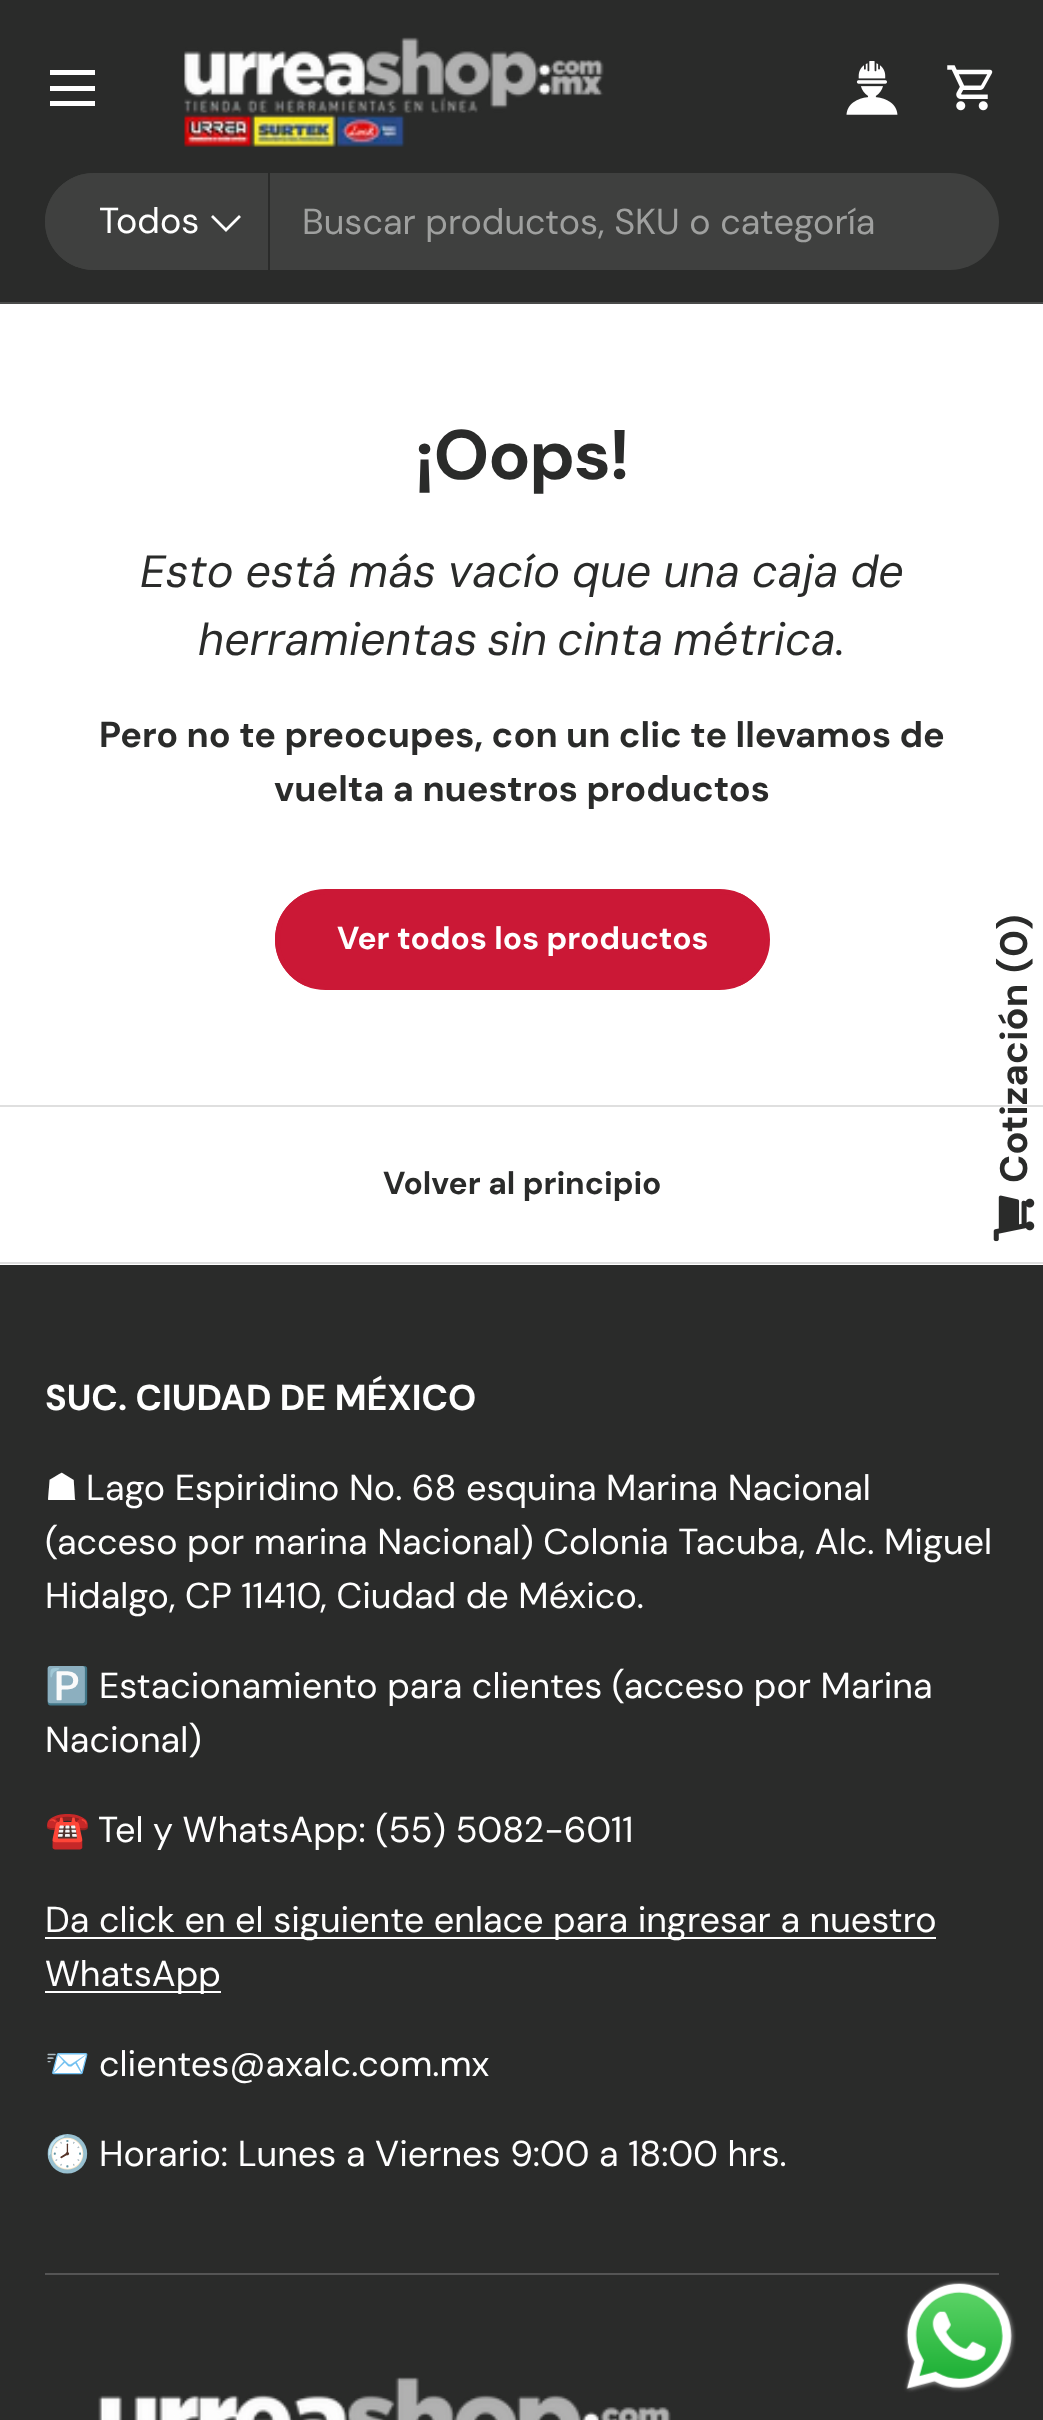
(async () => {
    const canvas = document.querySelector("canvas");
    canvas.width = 1043;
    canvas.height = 2420;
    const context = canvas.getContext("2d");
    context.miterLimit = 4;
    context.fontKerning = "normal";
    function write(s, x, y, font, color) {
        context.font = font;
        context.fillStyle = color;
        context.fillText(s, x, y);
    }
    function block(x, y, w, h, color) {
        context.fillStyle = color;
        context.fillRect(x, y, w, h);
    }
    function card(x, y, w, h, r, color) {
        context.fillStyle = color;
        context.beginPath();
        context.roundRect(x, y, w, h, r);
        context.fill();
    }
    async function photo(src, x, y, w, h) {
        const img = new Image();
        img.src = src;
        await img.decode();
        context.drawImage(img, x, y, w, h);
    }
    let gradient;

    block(0, 0, 1043, 2420, "rgb(255, 255, 255)");
    block(0, 0, 1043, 302, "rgb(42, 43, 42)");
    block(0, 302, 1043, 2, "rgb(74, 75, 74)");
    block(50, 70, 45, 5, "rgb(255, 255, 255)");
    block(50, 101, 45, 5, "rgb(255, 255, 255)");
    block(50, 86, 45, 5, "rgb(255, 255, 255)");
    await photo("media/1.png", 184, 37, 420, 110);
    await photo("media/2.png", 846, 61, 52, 54);
    await photo("media/3.png", 947, 65, 46, 46);
    card(45, 173, 954, 97, 48.5, "rgb(63, 64, 63)");
    context.beginPath();
    context.roundRect(45, 173, 225, 97, [48.5, 0, 0, 48.5]);
    context.fill();
    block(268, 173, 2, 97, "rgb(42, 43, 42)");
    write("Todos", 99, 233, "36px DM Sans", "rgb(255, 255, 255)");
    context.beginPath();
    context.moveTo(240, 216);
    context.lineTo(226, 230);
    context.lineTo(212, 216);
    context.strokeStyle = "rgb(255, 255, 255)";
    context.lineWidth = 2.8;
    context.stroke();
    write("Buscar productos, SKU o categoría", 302, 234, "36px DM Sans", "rgb(159, 160, 159)");
    write("¡Oops!", 415, 479, "bold 70px DM Sans", "rgb(42, 43, 42)");
    context.wordSpacing = "-0.25px";
    write("Esto está más vacío que una caja de", 140, 587, "italic 45px DM Sans", "rgb(42, 43, 42)");
    context.wordSpacing = "-2px";
    write("herramientas sin cinta métrica.", 198, 655, "italic 45px DM Sans", "rgb(42, 43, 42)");
    context.wordSpacing = "0px";
    write("Pero no te preocupes, con un clic te llevamos de", 99, 747, "bold 36px 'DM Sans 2'", "rgb(42, 43, 42)");
    write("vuelta a nuestros productos", 274, 801, "bold 36px 'DM Sans 2'", "rgb(42, 43, 42)");
    context.save();
    context.beginPath();
    context.roundRect(275, 889, 495, 101, 50.5);
    context.clip();
    gradient = context.createLinearGradient(-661, 766, 733, 1113);
    gradient.addColorStop(0.6, "rgb(214, 71, 95)");
    gradient.addColorStop(0.6, "rgb(203, 24, 54)");
    gradient.addColorStop(1, "rgb(203, 24, 54)");
    context.fillStyle = gradient;
    context.fillRect(275, 893, 490, 93);
    context.restore();
    context.beginPath();
    context.roundRect(277.5, 891.5, 490, 96, 48);
    context.strokeStyle = "rgb(203, 24, 54)";
    context.lineWidth = 5;
    context.stroke();
    write("Ver todos los productos", 337, 949, "bold 31.75px 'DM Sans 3'", "rgb(255, 255, 255)");
    context.font = "bold 38.25px 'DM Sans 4'";
    context.fillStyle = "rgb(42, 43, 42)";
    context.save();
    context.translate(1027, 930);
    context.rotate(-90 * Math.PI / 180);
    context.fillText(")", 0, 0);
    context.restore();
    context.save();
    context.translate(1027, 957);
    context.rotate(-90 * Math.PI / 180);
    context.fillText("0", 0, 0);
    context.restore();
    context.save();
    context.translate(1027, 973);
    context.rotate(-90 * Math.PI / 180);
    context.fillText("(", 0, 0);
    context.restore();
    block(0, 1105, 1043, 2, "rgb(223, 223, 223)");
    context.fillStyle = "rgb(42, 43, 42)";
    context.save();
    context.translate(1027, 1183);
    context.rotate(-90 * Math.PI / 180);
    context.fillText("Cotización", 0, 0);
    context.restore();
    await photo("media/4.png", 993, 1195, 42, 47);
    block(0, 1262, 1043, 2, "rgb(223, 223, 223)");
    write("Volver al principio", 383, 1194, "bold 31.75px 'DM Sans 3'", "rgb(42, 43, 42)");
    block(0, 1265, 1043, 1155, "rgb(42, 43, 42)");
    write("SUC. CIUDAD DE MÉXICO", 45, 1410, "bold 36px 'DM Sans 2'", "rgb(255, 255, 255)");
    write("☗", 45, 1500, "bold 36px DejaVu Sans", "rgb(255, 255, 255)");
    write("Lago Espiridino No. 68 esquina Marina Nacional", 86, 1500, "36px DM Sans", "rgb(255, 255, 255)");
    write("(acceso por marina Nacional) Colonia Tacuba, Alc. Miguel", 45, 1554, "36px DM Sans", "rgb(255, 255, 255)");
    write("Hidalgo, CP 11410, Ciudad de México.", 45, 1608, "36px DM Sans", "rgb(255, 255, 255)");
    write("🅿️", 45, 1698, "36px Noto Color Emoji", "rgb(255, 255, 255)");
    write("Estacionamiento para clientes (acceso por Marina", 99, 1698, "36px DM Sans", "rgb(255, 255, 255)");
    write("Nacional)", 45, 1752, "36px DM Sans", "rgb(255, 255, 255)");
    write("☎️", 45, 1842, "36px 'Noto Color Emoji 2'", "rgb(255, 255, 255)");
    write("Tel y WhatsApp: (55) 5082-6011", 98, 1842, "36px DM Sans", "rgb(255, 255, 255)");
    block(45, 1937, 891, 2, "rgb(255, 255, 255)");
    write("Da click en el siguiente enlace para ingresar a nuestro", 45, 1932, "36px DM Sans", "rgb(255, 255, 255)");
    block(45, 1991, 176, 2, "rgb(255, 255, 255)");
    write("WhatsApp", 45, 1986, "36px DM Sans", "rgb(255, 255, 255)");
    write("📨", 45, 2076, "36px Noto Color Emoji", "rgb(255, 255, 255)");
    write("clientes@axalc.com.mx", 99, 2076, "36px DM Sans", "rgb(255, 255, 255)");
    write("🕗", 45, 2166, "36px Noto Color Emoji", "rgb(255, 255, 255)");
    write("Horario: Lunes a Viernes 9:00 a 18:00 hrs.", 99, 2166, "36px DM Sans", "rgb(255, 255, 255)");
    block(45, 2273, 954, 2, "rgb(85, 85, 85)");
    await photo("media/5.png", 98, 2377, 573, 43);
    await photo("media/6.png", 903, 2280, 113, 113);
})();
